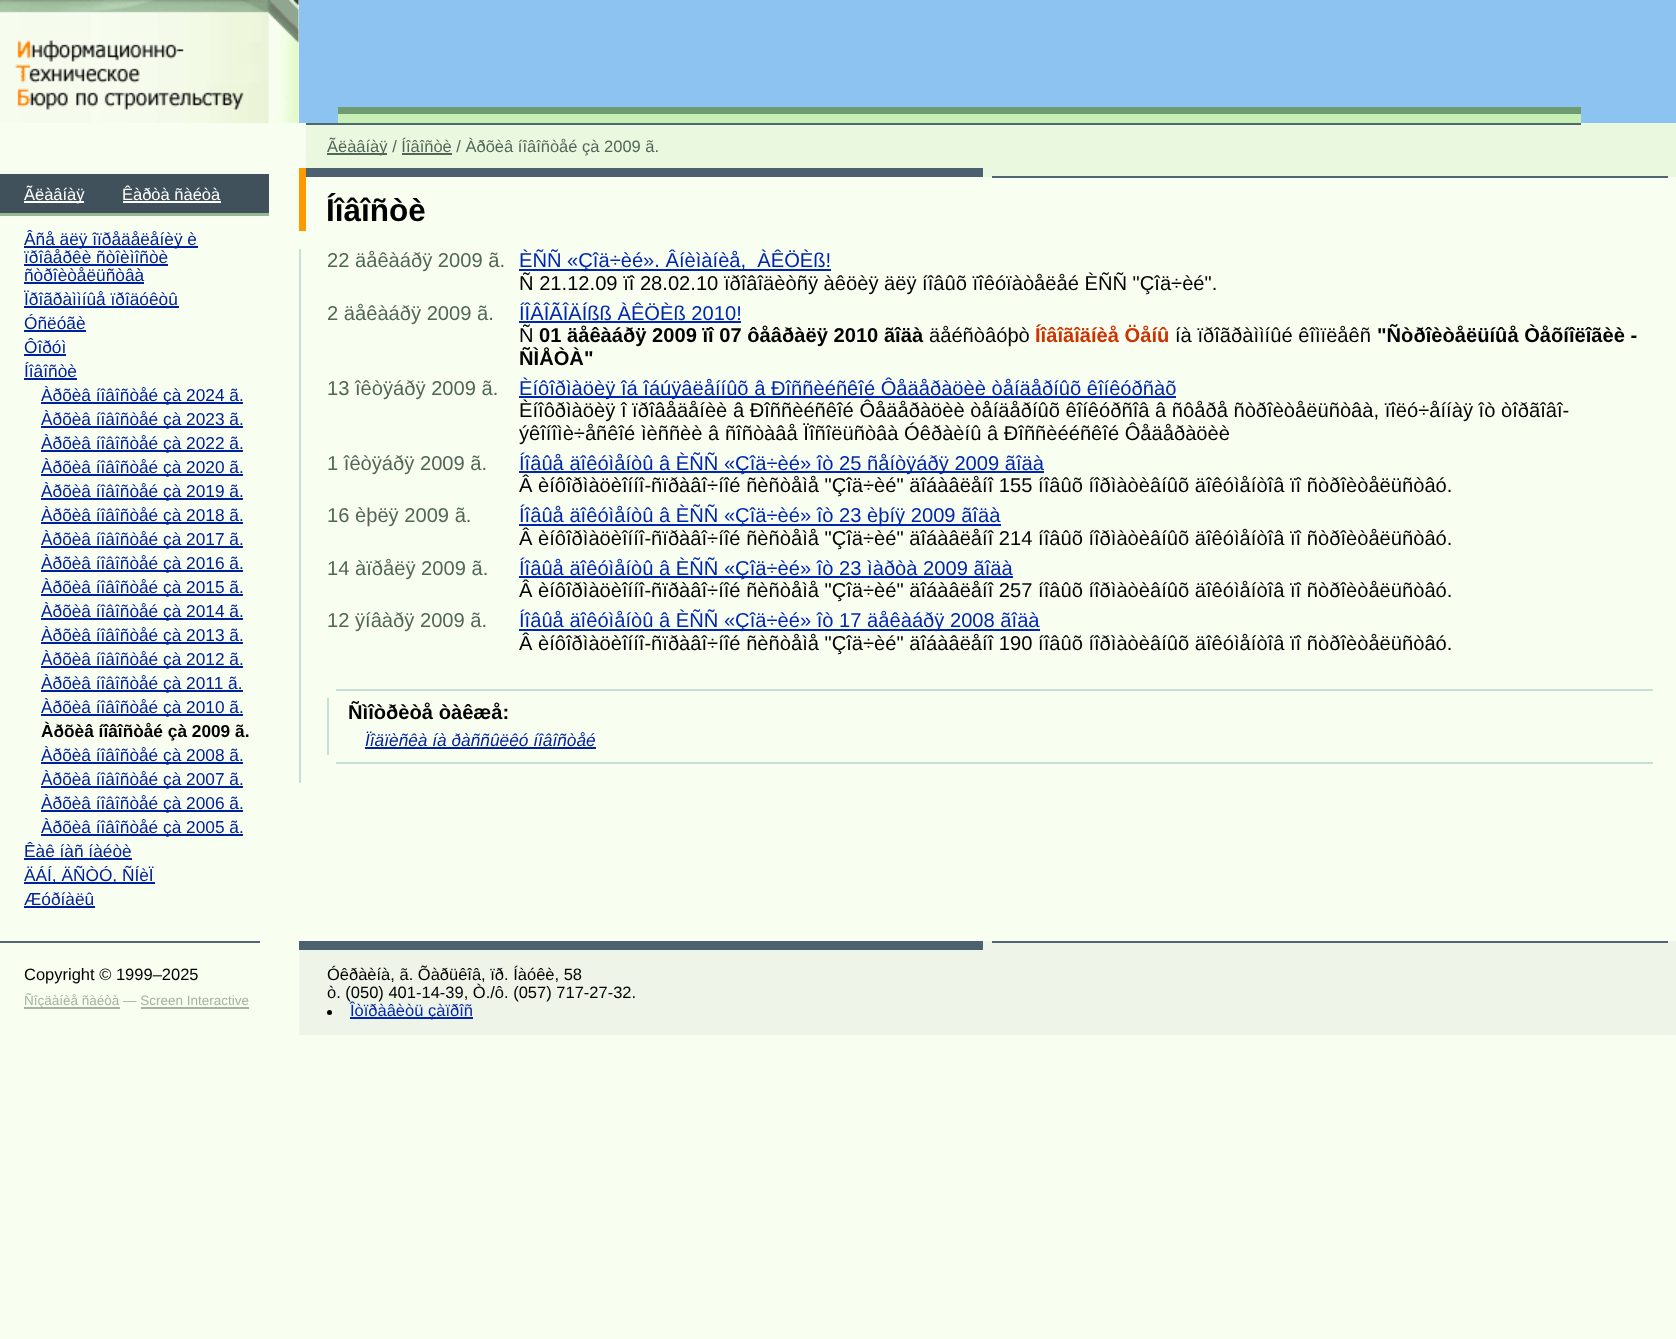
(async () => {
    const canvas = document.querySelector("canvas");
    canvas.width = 1676;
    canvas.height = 1339;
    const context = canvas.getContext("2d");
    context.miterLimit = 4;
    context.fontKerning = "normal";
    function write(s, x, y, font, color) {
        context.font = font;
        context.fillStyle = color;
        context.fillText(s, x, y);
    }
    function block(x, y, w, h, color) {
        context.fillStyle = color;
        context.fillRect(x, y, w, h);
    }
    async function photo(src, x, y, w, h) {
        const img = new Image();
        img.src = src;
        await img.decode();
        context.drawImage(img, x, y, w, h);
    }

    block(0, 0, 1676, 1339, "rgb(248, 254, 240)");
    block(299, 0, 1377, 123, "rgb(141, 195, 241)");
    await photo("media/1.png", 0, 0, 299, 123);
    block(338, 107, 1243, 7, "rgb(111, 155, 113)");
    block(338, 114, 1243, 9, "rgb(199, 240, 181)");
    block(0, 174, 269, 39, "rgb(64, 81, 91)");
    block(0, 213, 269, 3, "rgb(147, 186, 149)");
    block(24, 201, 60, 2, "rgb(255, 255, 255)");
    write("Ãëàâíàÿ", 24, 200, "16.5px Liberation Sans", "rgb(255, 255, 255)");
    write("Êàðòà ñàéòà", 122, 200, "16.5px Liberation Sans", "rgb(255, 255, 255)");
    block(123, 201, 98, 2, "rgb(255, 255, 255)");
    block(24, 246, 174, 2, "rgb(0, 33, 153)");
    write("Âñå äëÿ îïðåäåëåíèÿ è", 24, 245, "17.3px Liberation Sans", "rgb(0, 33, 153)");
    write("ïðîâåðêè ñòîèìîñòè", 24, 263, "17.3px Liberation Sans", "rgb(0, 33, 153)");
    block(24, 264, 144, 2, "rgb(0, 33, 153)");
    write("ñòðîèòåëüñòâà", 24, 281, "17.3px Liberation Sans", "rgb(0, 33, 153)");
    block(24, 282, 120, 2, "rgb(0, 33, 153)");
    write("Ïðîãðàììíûå ïðîäóêòû", 24, 305, "17.3px Liberation Sans", "rgb(0, 33, 153)");
    block(24, 306, 155, 2, "rgb(0, 33, 153)");
    write("Óñëóãè", 24, 329, "17.3px Liberation Sans", "rgb(0, 33, 153)");
    block(24, 330, 62, 2, "rgb(0, 33, 153)");
    write("Ôîðóì", 24, 353, "17.3px Liberation Sans", "rgb(0, 33, 153)");
    block(24, 354, 42, 2, "rgb(0, 33, 153)");
    write("Íîâîñòè", 24, 377, "17.3px Liberation Sans", "rgb(0, 33, 153)");
    block(24, 378, 53, 2, "rgb(0, 33, 153)");
    block(41, 402, 202, 2, "rgb(0, 33, 153)");
    write("Àðõèâ íîâîñòåé çà 2024 ã.", 41, 401, "17.3px Liberation Sans", "rgb(0, 33, 153)");
    block(41, 426, 202, 2, "rgb(0, 33, 153)");
    write("Àðõèâ íîâîñòåé çà 2023 ã.", 41, 425, "17.3px Liberation Sans", "rgb(0, 33, 153)");
    block(41, 450, 202, 2, "rgb(0, 33, 153)");
    write("Àðõèâ íîâîñòåé çà 2022 ã.", 41, 449, "17.3px Liberation Sans", "rgb(0, 33, 153)");
    block(41, 474, 202, 2, "rgb(0, 33, 153)");
    write("Àðõèâ íîâîñòåé çà 2020 ã.", 41, 473, "17.3px Liberation Sans", "rgb(0, 33, 153)");
    block(41, 498, 202, 2, "rgb(0, 33, 153)");
    write("Àðõèâ íîâîñòåé çà 2019 ã.", 41, 497, "17.3px Liberation Sans", "rgb(0, 33, 153)");
    block(41, 522, 202, 2, "rgb(0, 33, 153)");
    write("Àðõèâ íîâîñòåé çà 2018 ã.", 41, 521, "17.3px Liberation Sans", "rgb(0, 33, 153)");
    block(41, 546, 202, 2, "rgb(0, 33, 153)");
    write("Àðõèâ íîâîñòåé çà 2017 ã.", 41, 545, "17.3px Liberation Sans", "rgb(0, 33, 153)");
    block(41, 570, 202, 2, "rgb(0, 33, 153)");
    write("Àðõèâ íîâîñòåé çà 2016 ã.", 41, 569, "17.3px Liberation Sans", "rgb(0, 33, 153)");
    block(41, 594, 202, 2, "rgb(0, 33, 153)");
    write("Àðõèâ íîâîñòåé çà 2015 ã.", 41, 593, "17.3px Liberation Sans", "rgb(0, 33, 153)");
    block(41, 618, 202, 2, "rgb(0, 33, 153)");
    write("Àðõèâ íîâîñòåé çà 2014 ã.", 41, 617, "17.3px Liberation Sans", "rgb(0, 33, 153)");
    block(41, 642, 202, 2, "rgb(0, 33, 153)");
    write("Àðõèâ íîâîñòåé çà 2013 ã.", 41, 641, "17.3px Liberation Sans", "rgb(0, 33, 153)");
    block(41, 666, 202, 2, "rgb(0, 33, 153)");
    write("Àðõèâ íîâîñòåé çà 2012 ã.", 41, 665, "17.3px Liberation Sans", "rgb(0, 33, 153)");
    block(41, 690, 202, 2, "rgb(0, 33, 153)");
    write("Àðõèâ íîâîñòåé çà 2011 ã.", 41, 689, "17.3px Liberation Sans", "rgb(0, 33, 153)");
    block(41, 714, 202, 2, "rgb(0, 33, 153)");
    write("Àðõèâ íîâîñòåé çà 2010 ã.", 41, 713, "17.3px Liberation Sans", "rgb(0, 33, 153)");
    write("Àðõèâ íîâîñòåé çà 2009 ã.", 41, 737, "bold 17.3px Liberation Sans", "rgb(0, 0, 0)");
    block(41, 762, 202, 2, "rgb(0, 33, 153)");
    write("Àðõèâ íîâîñòåé çà 2008 ã.", 41, 761, "17.3px Liberation Sans", "rgb(0, 33, 153)");
    block(41, 786, 202, 2, "rgb(0, 33, 153)");
    write("Àðõèâ íîâîñòåé çà 2007 ã.", 41, 785, "17.3px Liberation Sans", "rgb(0, 33, 153)");
    block(41, 810, 202, 2, "rgb(0, 33, 153)");
    write("Àðõèâ íîâîñòåé çà 2006 ã.", 41, 809, "17.3px Liberation Sans", "rgb(0, 33, 153)");
    block(41, 834, 202, 2, "rgb(0, 33, 153)");
    write("Àðõèâ íîâîñòåé çà 2005 ã.", 41, 833, "17.3px Liberation Sans", "rgb(0, 33, 153)");
    write("Êàê íàñ íàéòè", 24, 857, "17.3px Liberation Sans", "rgb(0, 33, 153)");
    block(24, 858, 108, 2, "rgb(0, 33, 153)");
    block(24, 882, 131, 2, "rgb(0, 33, 153)");
    write("ÄÁÍ, ÄÑÒÓ, ÑÍèÏ", 24, 881, "17.3px Liberation Sans", "rgb(0, 33, 153)");
    write("Æóðíàëû", 24, 905, "17.3px Liberation Sans", "rgb(0, 33, 153)");
    block(24, 906, 71, 2, "rgb(0, 33, 153)");
    block(306, 125, 1275, 43, "rgb(235, 248, 224)");
    block(306, 123, 1275, 2, "rgb(81, 102, 114)");
    block(327, 153, 60, 2, "rgb(82, 102, 88)");
    write("Ãëàâíàÿ / Íîâîñòè / Àðõèâ íîâîñòåé çà 2009 ã.", 327, 152, "16.5px Liberation Sans", "rgb(82, 102, 88)");
    block(402, 153, 50, 2, "rgb(82, 102, 88)");
    block(1581, 123, 95, 45, "rgb(235, 248, 224)");
    block(299, 168, 7, 63, "rgb(255, 153, 0)");
    block(306, 168, 677, 9, "rgb(76, 97, 111)");
    block(983, 168, 9, 9, "rgb(235, 248, 224)");
    block(992, 168, 676, 8, "rgb(235, 248, 224)");
    block(992, 176, 676, 2, "rgb(81, 102, 114)");
    block(1668, 168, 8, 9, "rgb(235, 248, 224)");
    write("Íîâîñòè", 326, 221, "bold 31.5px Liberation Sans", "rgb(0, 0, 0)");
    block(299, 249, 2, 534, "rgb(200, 223, 213)");
    write("22 äåêàáðÿ 2009 ã.", 327, 267, "20.15px Liberation Sans", "rgb(82, 102, 88)");
    block(519, 269, 312, 2, "rgb(0, 38, 175)");
    write("ÈÑÑ «Çîä÷èé». Âíèìàíèå,  ÀÊÖÈß!", 519, 267, "20.15px Liberation Sans", "rgb(0, 38, 175)");
    write("Ñ 21.12.09 ïî 28.02.10 ïðîâîäèòñÿ àêöèÿ äëÿ íîâûõ ïîêóïàòåëåé ÈÑÑ \"Çîä÷èé\".", 519, 290, "20.15px Liberation Sans", "rgb(0, 0, 0)");
    write("2 äåêàáðÿ 2009 ã.", 327, 320, "20.15px Liberation Sans", "rgb(82, 102, 88)");
    write("ÍÎÂÎÃÎÄÍßß ÀÊÖÈß 2010!", 519, 320, "20.15px Liberation Sans", "rgb(0, 38, 175)");
    block(519, 321, 222, 2, "rgb(0, 38, 175)");
    write("Ñ", 519, 342, "20.15px Liberation Sans", "rgb(0, 0, 0)");
    write("01 äåêàáðÿ 2009 ïî 07 ôåâðàëÿ 2010 ãîäà", 539, 342, "bold 20.15px Liberation Sans", "rgb(0, 0, 0)");
    write("äåéñòâóþò", 929, 342, "20.15px Liberation Sans", "rgb(0, 0, 0)");
    write("Íîâîãîäíèå Öåíû", 1035, 342, "bold 20.15px Liberation Sans", "rgb(204, 51, 0)");
    write("íà ïðîãðàììíûé êîìïëåêñ", 1175, 342, "20.15px Liberation Sans", "rgb(0, 0, 0)");
    write("\"Ñòðîèòåëüíûå Òåõíîëîãèè -", 1377, 342, "bold 20.15px Liberation Sans", "rgb(0, 0, 0)");
    write("ÑÌÅÒÀ\"", 519, 365, "bold 20.15px Liberation Sans", "rgb(0, 0, 0)");
    write("13 îêòÿáðÿ 2009 ã.", 327, 395, "20.15px Liberation Sans", "rgb(82, 102, 88)");
    block(519, 396, 657, 2, "rgb(0, 38, 175)");
    write("Èíôîðìàöèÿ îá îáúÿâëåííûõ â Ðîññèéñêîé Ôåäåðàöèè òåíäåðíûõ êîíêóðñàõ", 519, 395, "20.15px Liberation Sans", "rgb(0, 38, 175)");
    write("Èíîôðìàöèÿ î ïðîâåäåíèè â Ðîññèéñêîé Ôåäåðàöèè òåíäåðíûõ êîíêóðñîâ â ñôåðå ñòðîèòåëüñòâà, ïîëó÷åííàÿ îò òîðãîâî-", 519, 417, "20.15px Liberation Sans", "rgb(0, 0, 0)");
    write("ýêîíîìè÷åñêîé ìèññèè â ñîñòàâå Ïîñîëüñòâà Óêðàèíû â Ðîññèééñêîé Ôåäåðàöèè", 519, 440, "20.15px Liberation Sans", "rgb(0, 0, 0)");
    write("1 îêòÿáðÿ 2009 ã.", 327, 470, "20.15px Liberation Sans", "rgb(82, 102, 88)");
    block(519, 471, 525, 2, "rgb(0, 38, 175)");
    write("Íîâûå äîêóìåíòû â ÈÑÑ «Çîä÷èé» îò 25 ñåíòÿáðÿ 2009 ãîäà", 519, 470, "20.15px Liberation Sans", "rgb(0, 38, 175)");
    write("Â èíôîðìàöèîííî-ñïðàâî÷íîé ñèñòåìå \"Çîä÷èé\" äîáàâëåíî 155 íîâûõ íîðìàòèâíûõ äîêóìåíòîâ ïî ñòðîèòåëüñòâó.", 519, 492, "20.15px Liberation Sans", "rgb(0, 0, 0)");
    write("16 èþëÿ 2009 ã.", 327, 522, "20.15px Liberation Sans", "rgb(82, 102, 88)");
    block(519, 524, 482, 2, "rgb(0, 38, 175)");
    write("Íîâûå äîêóìåíòû â ÈÑÑ «Çîä÷èé» îò 23 èþíÿ 2009 ãîäà", 519, 522, "20.15px Liberation Sans", "rgb(0, 38, 175)");
    write("Â èíôîðìàöèîííî-ñïðàâî÷íîé ñèñòåìå \"Çîä÷èé\" äîáàâëåíî 214 íîâûõ íîðìàòèâíûõ äîêóìåíòîâ ïî ñòðîèòåëüñòâó.", 519, 545, "20.15px Liberation Sans", "rgb(0, 0, 0)");
    write("14 àïðåëÿ 2009 ã.", 327, 575, "20.15px Liberation Sans", "rgb(82, 102, 88)");
    block(519, 576, 494, 2, "rgb(0, 38, 175)");
    write("Íîâûå äîêóìåíòû â ÈÑÑ «Çîä÷èé» îò 23 ìàðòà 2009 ãîäà", 519, 575, "20.15px Liberation Sans", "rgb(0, 38, 175)");
    write("Â èíôîðìàöèîííî-ñïðàâî÷íîé ñèñòåìå \"Çîä÷èé\" äîáàâëåíî 257 íîâûõ íîðìàòèâíûõ äîêóìåíòîâ ïî ñòðîèòåëüñòâó.", 519, 597, "20.15px Liberation Sans", "rgb(0, 0, 0)");
    write("12 ÿíâàðÿ 2009 ã.", 327, 627, "20.15px Liberation Sans", "rgb(82, 102, 88)");
    block(519, 629, 521, 2, "rgb(0, 38, 175)");
    write("Íîâûå äîêóìåíòû â ÈÑÑ «Çîä÷èé» îò 17 äåêàáðÿ 2008 ãîäà", 519, 627, "20.15px Liberation Sans", "rgb(0, 38, 175)");
    write("Â èíôîðìàöèîííî-ñïðàâî÷íîé ñèñòåìå \"Çîä÷èé\" äîáàâëåíî 190 íîâûõ íîðìàòèâíûõ äîêóìåíòîâ ïî ñòðîèòåëüñòâó.", 519, 650, "20.15px Liberation Sans", "rgb(0, 0, 0)");
    block(336, 689, 1317, 2, "rgb(200, 223, 213)");
    block(327, 698, 2, 57, "rgb(200, 223, 213)");
    write("Ñìîòðèòå òàêæå:", 348, 719, "bold 20.15px Liberation Sans", "rgb(0, 0, 0)");
    write("Ïîäïèñêà íà ðàññûëêó íîâîñòåé", 365, 746, "italic 17.3px Liberation Sans", "rgb(0, 33, 153)");
    block(365, 747, 231, 2, "rgb(0, 33, 153)");
    block(336, 762, 1317, 2, "rgb(200, 223, 213)");
    block(0, 941, 260, 2, "rgb(81, 102, 114)");
    write("Copyright © 1999–2025", 24, 980, "16.5px Liberation Sans", "rgb(0, 0, 0)");
    block(24, 1007, 96, 2, "rgb(165, 178, 164)");
    write("Ñîçäàíèå ñàéòà — Screen Interactive", 24, 1005, "13.5px Liberation Sans", "rgb(165, 178, 164)");
    block(141, 1007, 108, 2, "rgb(165, 178, 164)");
    block(299, 941, 1377, 94, "rgb(238, 244, 231)");
    block(299, 941, 684, 9, "rgb(76, 97, 111)");
    block(992, 941, 676, 2, "rgb(81, 102, 114)");
    write("Óêðàèíà, ã. Õàðüêîâ, ïð. Íàóêè, 58", 327, 980, "16.5px Liberation Sans", "rgb(0, 0, 0)");
    write("ò. (050) 401-14-39, Ò./ô. (057) 717-27-32.", 327, 998, "16.5px Liberation Sans", "rgb(0, 0, 0)");
    context.beginPath();
    context.arc(329.5, 1012.5, 2.5, 0, Math.PI * 2);
    context.fill();
    block(350, 1017, 123, 2, "rgb(0, 38, 175)");
    write("Îòïðàâèòü çàïðîñ", 350, 1016, "16.5px Liberation Sans", "rgb(0, 38, 175)");
})();
